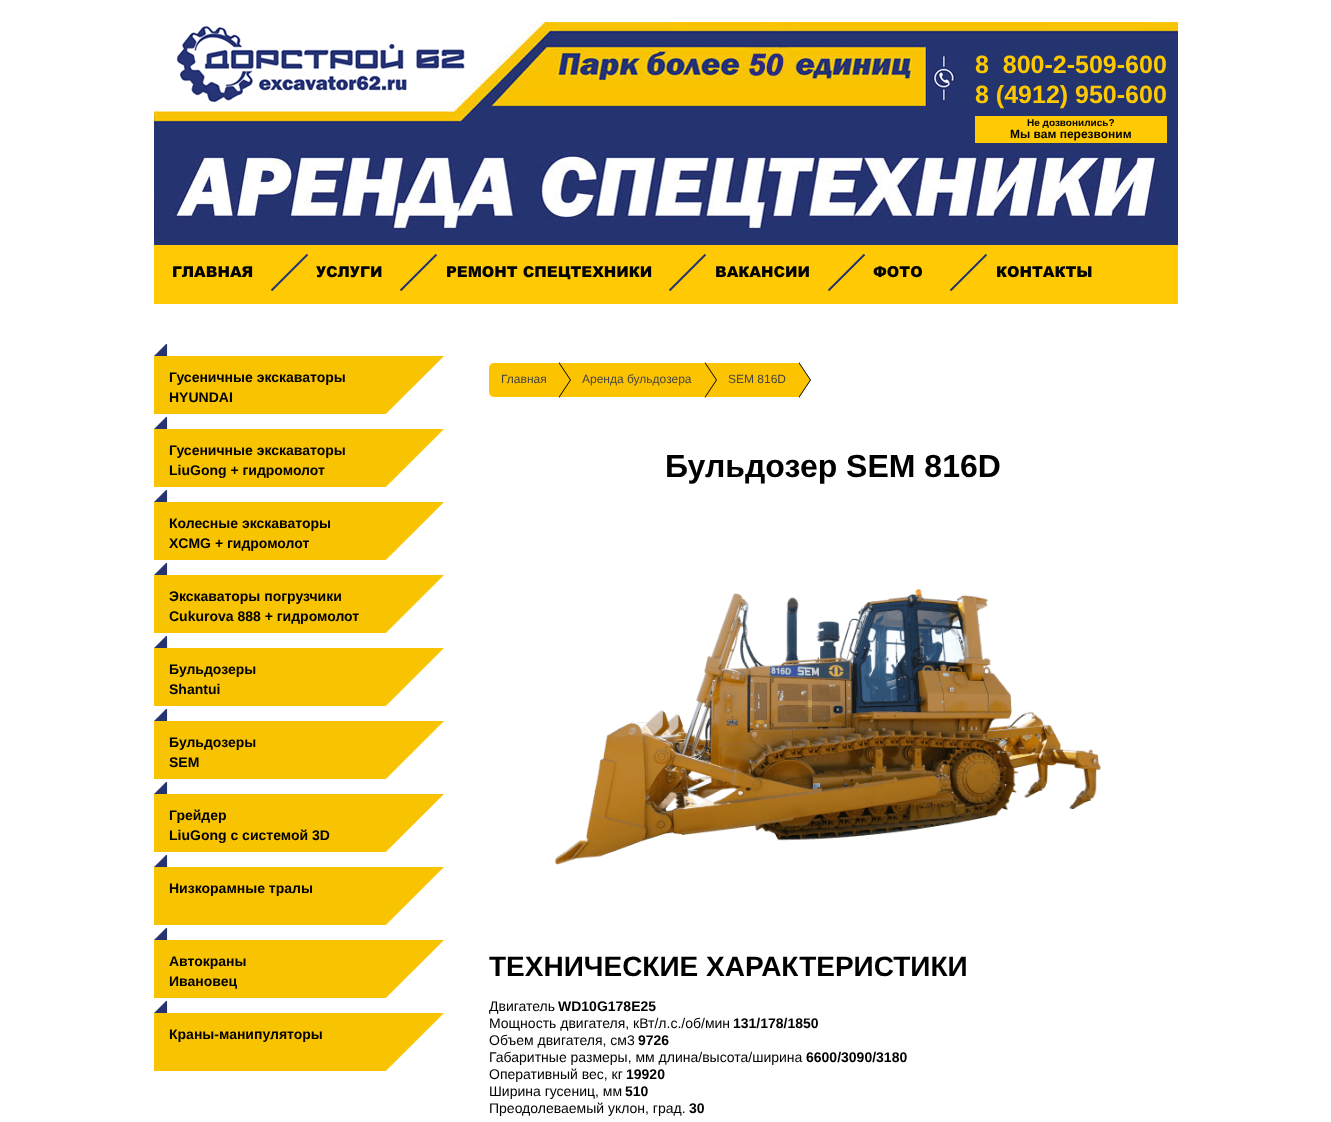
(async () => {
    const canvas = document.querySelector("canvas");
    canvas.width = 1331;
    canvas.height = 1122;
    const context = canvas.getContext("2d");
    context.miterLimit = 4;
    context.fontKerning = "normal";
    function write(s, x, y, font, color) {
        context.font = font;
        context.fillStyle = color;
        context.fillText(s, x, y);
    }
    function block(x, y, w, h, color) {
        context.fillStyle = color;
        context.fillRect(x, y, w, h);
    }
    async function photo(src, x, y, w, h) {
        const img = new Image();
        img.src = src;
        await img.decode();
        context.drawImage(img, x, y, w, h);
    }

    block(0, 0, 1331, 1122, "rgb(255, 255, 255)");
    await photo("media/1.png", 154, 22, 1024, 223);
    await photo("media/2.png", 176, 26, 289, 77);
    await photo("media/3.png", 932, 54, 24, 48);
    write("8  800-2-509-600", 975, 73, "bold 25px Liberation Sans", "rgb(255, 201, 0)");
    write("8 (4912) 950-600", 975, 103, "bold 25px Liberation Sans", "rgb(255, 201, 0)");
    block(975, 116, 192, 27, "rgb(255, 201, 3)");
    write("Не дозвонились?", 1027, 126, "bold 10px Liberation Sans", "rgb(0, 0, 0)");
    write("Мы вам перезвоним", 1010, 138, "bold 12px Liberation Sans", "rgb(0, 0, 0)");
    block(154, 245, 1024, 59, "rgb(255, 201, 3)");
    write("ГЛАВНАЯ", 172, 277, "900 15px Arial", "rgb(0, 0, 0)");
    await photo("media/4.png", 270, 253, 39, 39);
    write("УСЛУГИ", 316, 277, "900 15px Arial", "rgb(0, 0, 0)");
    await photo("media/4.png", 399, 253, 39, 39);
    write("РЕМОНТ СПЕЦТЕХНИКИ", 446, 277, "900 15px Arial", "rgb(0, 0, 0)");
    await photo("media/4.png", 668, 253, 39, 39);
    write("ВАКАНСИИ", 715, 277, "900 15px Arial", "rgb(0, 0, 0)");
    await photo("media/4.png", 827, 253, 39, 39);
    write("ФОТО", 873, 277, "900 15px Arial", "rgb(0, 0, 0)");
    await photo("media/4.png", 949, 253, 39, 39);
    write("КОНТАКТЫ", 996, 277, "900 15px Arial", "rgb(0, 0, 0)");
    await photo("media/5.png", 154, 344, 290, 70);
    write("Гусеничные экскаваторы", 169, 382, "bold 14px Liberation Sans", "rgb(0, 0, 0)");
    write("HYUNDAI", 169, 402, "bold 14px Liberation Sans", "rgb(0, 0, 0)");
    await photo("media/5.png", 154, 417, 290, 70);
    write("Гусеничные экскаваторы", 169, 455, "bold 14px Liberation Sans", "rgb(0, 0, 0)");
    write("LiuGong + гидромолот", 169, 475, "bold 14px Liberation Sans", "rgb(0, 0, 0)");
    await photo("media/5.png", 154, 490, 290, 70);
    write("Колесные экскаваторы", 169, 528, "bold 14px Liberation Sans", "rgb(0, 0, 0)");
    write("XCMG + гидромолот", 169, 548, "bold 14px Liberation Sans", "rgb(0, 0, 0)");
    await photo("media/5.png", 154, 563, 290, 70);
    write("Экскаваторы погрузчики", 169, 601, "bold 14px Liberation Sans", "rgb(0, 0, 0)");
    write("Cukurova 888 + гидромолот", 169, 621, "bold 14px Liberation Sans", "rgb(0, 0, 0)");
    await photo("media/5.png", 154, 636, 290, 70);
    write("Бульдозеры", 169, 674, "bold 14px Liberation Sans", "rgb(0, 0, 0)");
    write("Shantui", 169, 694, "bold 14px Liberation Sans", "rgb(0, 0, 0)");
    await photo("media/5.png", 154, 709, 290, 70);
    write("Бульдозеры", 169, 747, "bold 14px Liberation Sans", "rgb(0, 0, 0)");
    write("SEM", 169, 767, "bold 14px Liberation Sans", "rgb(0, 0, 0)");
    await photo("media/5.png", 154, 782, 290, 70);
    write("Грейдер", 169, 820, "bold 14px Liberation Sans", "rgb(0, 0, 0)");
    write("LiuGong с системой 3D", 169, 840, "bold 14px Liberation Sans", "rgb(0, 0, 0)");
    await photo("media/5.png", 154, 855, 290, 70);
    write("Низкорамные тралы", 169, 893, "bold 14px Liberation Sans", "rgb(0, 0, 0)");
    await photo("media/5.png", 154, 928, 290, 70);
    write("Автокраны", 169, 966, "bold 14px Liberation Sans", "rgb(0, 0, 0)");
    write("Ивановец", 169, 986, "bold 14px Liberation Sans", "rgb(0, 0, 0)");
    await photo("media/5.png", 154, 1001, 290, 70);
    write("Краны-манипуляторы", 169, 1039, "bold 14px Liberation Sans", "rgb(0, 0, 0)");
    context.fillStyle = "rgb(251, 195, 0)";
    context.beginPath();
    context.roundRect(489, 363, 69, 34, [5, 0, 0, 5]);
    context.fill();
    block(558, 363, 240, 34, "rgb(251, 195, 0)");
    context.fillStyle = "rgb(0, 0, 0)";
    context.beginPath();
    context.moveTo(559, 398);
    context.lineTo(559, 362);
    context.lineTo(571, 380);
    context.closePath();
    context.fill();
    context.fillStyle = "rgb(251, 195, 0)";
    context.beginPath();
    context.moveTo(558, 398);
    context.lineTo(558, 362);
    context.lineTo(570, 380);
    context.closePath();
    context.fill();
    write("Главная", 501, 383, "12px Liberation Sans", "rgb(68, 68, 68)");
    context.fillStyle = "rgb(0, 0, 0)";
    context.beginPath();
    context.moveTo(705, 398);
    context.lineTo(705, 362);
    context.lineTo(717, 380);
    context.closePath();
    context.fill();
    context.fillStyle = "rgb(251, 195, 0)";
    context.beginPath();
    context.moveTo(704, 398);
    context.lineTo(704, 362);
    context.lineTo(716, 380);
    context.closePath();
    context.fill();
    write("Аренда бульдозера", 582, 383, "12px Liberation Sans", "rgb(68, 68, 68)");
    context.fillStyle = "rgb(0, 0, 0)";
    context.beginPath();
    context.moveTo(799, 398);
    context.lineTo(799, 362);
    context.lineTo(811, 380);
    context.closePath();
    context.fill();
    context.fillStyle = "rgb(251, 195, 0)";
    context.beginPath();
    context.moveTo(798, 398);
    context.lineTo(798, 362);
    context.lineTo(810, 380);
    context.closePath();
    context.fill();
    write("SEM 816D", 728, 383, "12px Liberation Sans", "rgb(68, 68, 68)");
    write("Бульдозер SEM 816D", 665, 477, "bold 32px Liberation Sans", "rgb(0, 0, 0)");
    await photo("media/6.png", 554, 588, 547, 277);
    write("ТЕХНИЧЕСКИЕ ХАРАКТЕРИСТИКИ", 489, 976, "bold 28px Liberation Sans", "rgb(0, 0, 0)");
    write("Двигатель", 489, 1011, "14px Liberation Sans", "rgb(0, 0, 0)");
    write("WD10G178E25", 558, 1011, "bold 14px Liberation Sans", "rgb(0, 0, 0)");
    write("Мощность двигателя, кВт/л.с./об/мин", 489, 1028, "14px Liberation Sans", "rgb(0, 0, 0)");
    write("131/178/1850", 733, 1028, "bold 14px Liberation Sans", "rgb(0, 0, 0)");
    write("Объем двигателя, см3", 489, 1045, "14px Liberation Sans", "rgb(0, 0, 0)");
    write("9726", 638, 1045, "bold 14px Liberation Sans", "rgb(0, 0, 0)");
    write("Габаритные размеры, мм длина/высота/ширина", 489, 1062, "14px Liberation Sans", "rgb(0, 0, 0)");
    write("6600/3090/3180", 806, 1062, "bold 14px Liberation Sans", "rgb(0, 0, 0)");
    write("Оперативный вес, кг", 489, 1079, "14px Liberation Sans", "rgb(0, 0, 0)");
    write("19920", 626, 1079, "bold 14px Liberation Sans", "rgb(0, 0, 0)");
    write("Ширина гусениц, мм", 489, 1096, "14px Liberation Sans", "rgb(0, 0, 0)");
    write("510", 625, 1096, "bold 14px Liberation Sans", "rgb(0, 0, 0)");
    write("Преодолеваемый уклон, град.", 489, 1113, "14px Liberation Sans", "rgb(0, 0, 0)");
    write("30", 689, 1113, "bold 14px Liberation Sans", "rgb(0, 0, 0)");
})();
